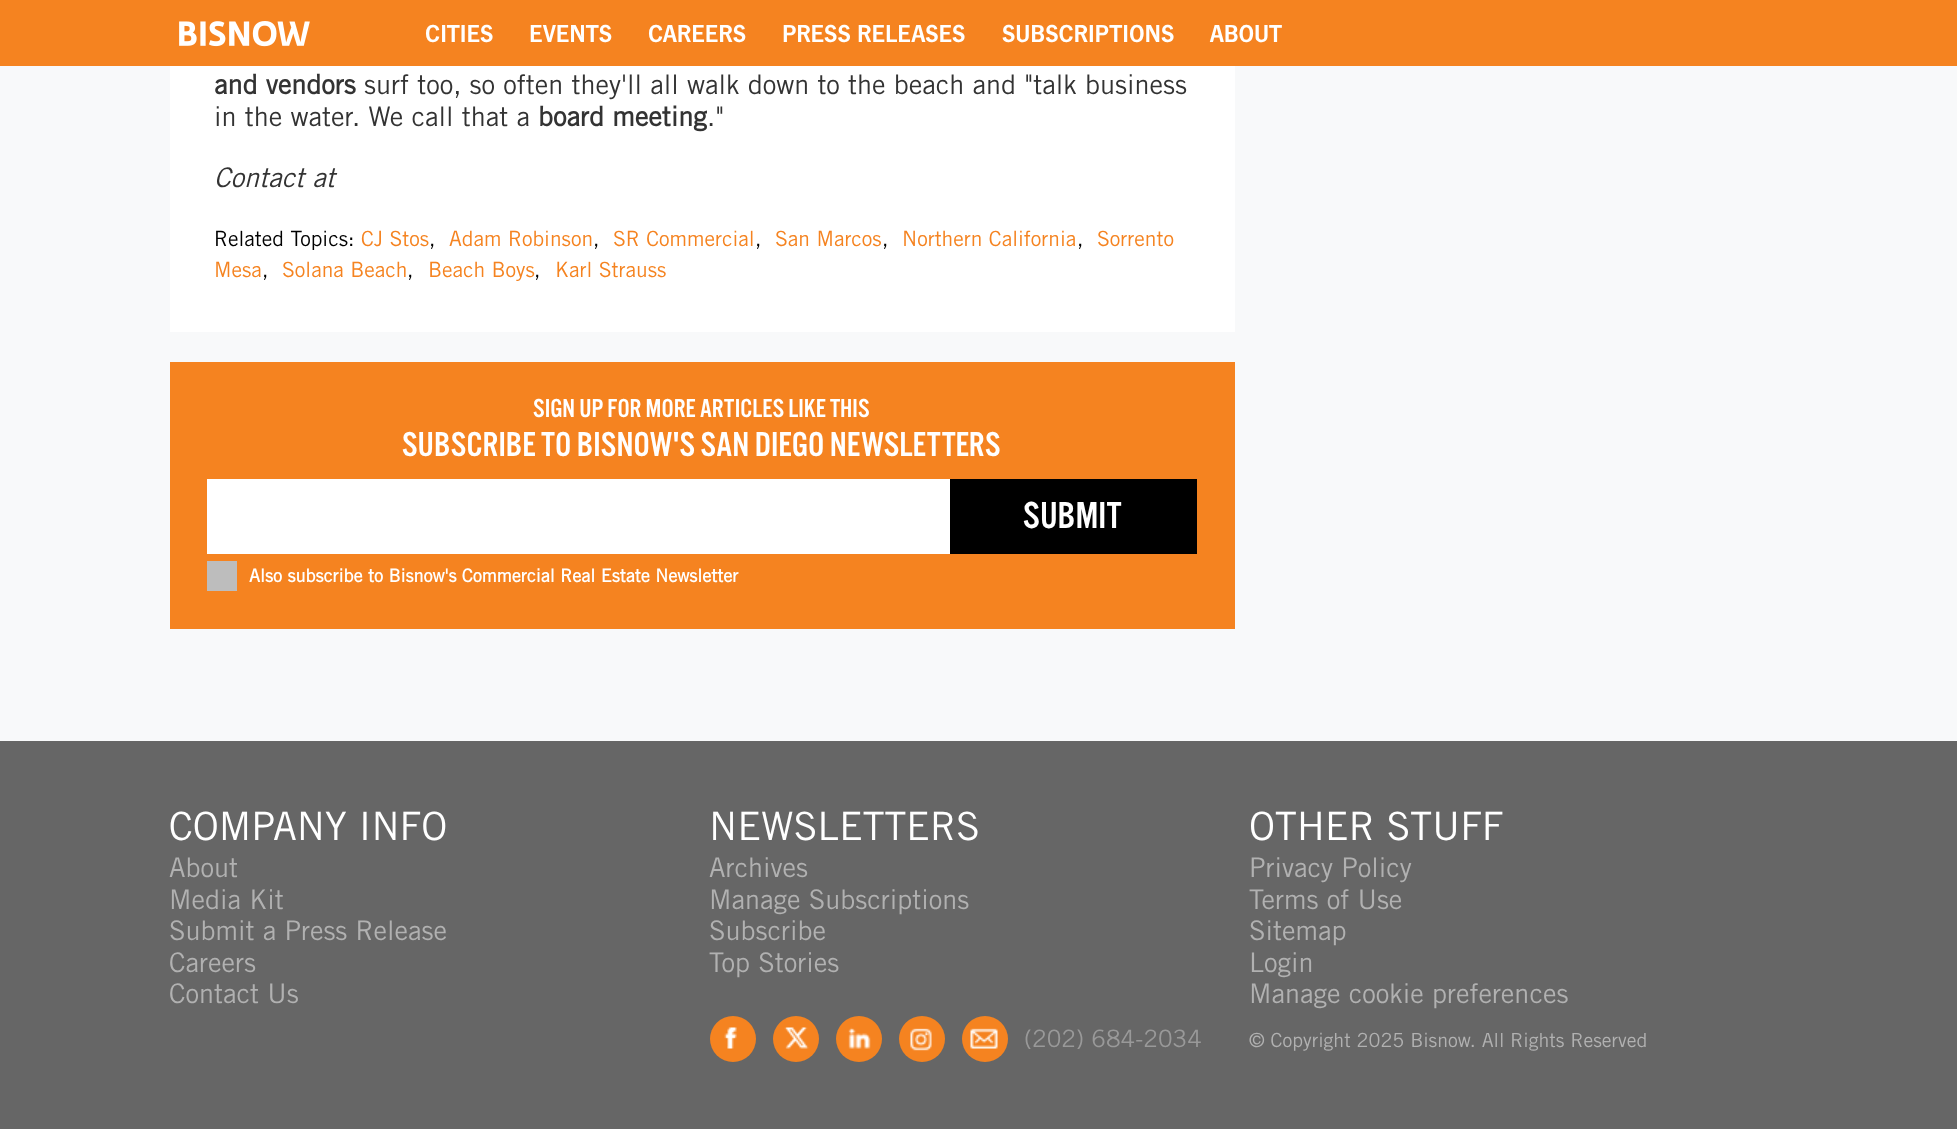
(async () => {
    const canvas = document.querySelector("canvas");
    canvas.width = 1957;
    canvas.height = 1129;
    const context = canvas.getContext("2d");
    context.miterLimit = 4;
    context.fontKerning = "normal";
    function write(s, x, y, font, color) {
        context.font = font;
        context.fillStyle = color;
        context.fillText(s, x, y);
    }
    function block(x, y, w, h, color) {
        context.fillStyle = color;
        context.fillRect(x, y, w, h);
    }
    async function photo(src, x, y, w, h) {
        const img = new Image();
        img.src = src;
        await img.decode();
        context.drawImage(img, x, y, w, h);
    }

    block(0, 0, 1957, 1129, "rgb(248, 249, 250)");
    block(0, 0, 1957, 66, "rgb(245, 131, 32)");
    await photo("media/1.png", 179, 21, 131, 26);
    write("CITIES", 425, 42, "600 25.5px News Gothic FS", "rgb(255, 255, 255)");
    write("EVENTS", 529, 42, "600 25.5px News Gothic FS", "rgb(255, 255, 255)");
    write("CAREERS", 648, 42, "600 25.5px News Gothic FS", "rgb(255, 255, 255)");
    write("PRESS RELEASES", 782, 42, "600 25.5px News Gothic FS", "rgb(255, 255, 255)");
    write("SUBSCRIPTIONS", 1002, 42, "600 25.5px News Gothic FS", "rgb(255, 255, 255)");
    write("ABOUT", 1210, 42, "600 25.5px News Gothic FS", "rgb(255, 255, 255)");
    block(170, 66, 1065, 266, "rgb(255, 255, 255)");
    write("and vendors", 214, 94, "bold 27px Trade Gothic", "rgb(51, 51, 51)");
    write("surf too, so often they'll all walk down to the beach and \"talk business", 364, 94, "27px Trade Gothic", "rgb(51, 51, 51)");
    write("in the water. We call that a", 214, 126, "27px Trade Gothic", "rgb(51, 51, 51)");
    write("board meeting", 538, 126, "bold 27px Trade Gothic", "rgb(51, 51, 51)");
    write(".\"", 707, 126, "27px Trade Gothic", "rgb(51, 51, 51)");
    write("Contact at", 214, 187, "italic 27px Trade Gothic", "rgb(51, 51, 51)");
    write("Related Topics:", 214, 246, "21px Trade Gothic", "rgb(0, 0, 0)");
    write("CJ Stos", 361, 246, "21px Trade Gothic", "rgb(245, 131, 32)");
    write(",", 429, 246, "21px Trade Gothic", "rgb(0, 0, 0)");
    write("Adam Robinson", 449, 246, "21px Trade Gothic", "rgb(245, 131, 32)");
    write(",", 593, 246, "21px Trade Gothic", "rgb(0, 0, 0)");
    write("SR Commercial", 613, 246, "21px Trade Gothic", "rgb(245, 131, 32)");
    write(",", 755, 246, "21px Trade Gothic", "rgb(0, 0, 0)");
    write("San Marcos", 775, 246, "21px Trade Gothic", "rgb(245, 131, 32)");
    write(",", 882, 246, "21px Trade Gothic", "rgb(0, 0, 0)");
    write("Northern California", 902, 246, "21px Trade Gothic", "rgb(245, 131, 32)");
    write(",", 1077, 246, "21px Trade Gothic", "rgb(0, 0, 0)");
    write("Sorrento", 1097, 246, "21px Trade Gothic", "rgb(245, 131, 32)");
    write("Mesa", 214, 277, "21px Trade Gothic", "rgb(245, 131, 32)");
    write(",", 262, 277, "21px Trade Gothic", "rgb(0, 0, 0)");
    write("Solana Beach", 282, 277, "21px Trade Gothic", "rgb(245, 131, 32)");
    write(",", 407, 277, "21px Trade Gothic", "rgb(0, 0, 0)");
    write("Beach Boys", 428, 277, "21px Trade Gothic", "rgb(245, 131, 32)");
    write(",", 534, 277, "21px Trade Gothic", "rgb(0, 0, 0)");
    write("Karl Strauss", 555, 277, "21px Trade Gothic", "rgb(245, 131, 32)");
    block(170, 362, 1065, 267, "rgb(245, 131, 32)");
    write("SIGN UP FOR MORE ARTICLES LIKE THIS", 533, 417, "27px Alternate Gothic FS", "rgb(255, 255, 255)");
    write("SUBSCRIBE TO BISNOW'S SAN DIEGO NEWSLETTERS", 402, 456, "36px Alternate Gothic FS", "rgb(255, 255, 255)");
    block(207, 479, 743, 75, "rgb(255, 255, 255)");
    block(950, 479, 247, 75, "rgb(0, 0, 0)");
    write("SUBMIT", 1023, 528, "39px Alternate Gothic FS", "rgb(255, 255, 255)");
    block(207, 561, 30, 30, "rgb(189, 189, 189)");
    write("Also subscribe to Bisnow's Commercial Real Estate Newsletter", 249, 582, "bold 18px Trade Gothic", "rgb(255, 255, 255)");
    block(0, 741, 1957, 388, "rgb(102, 102, 102)");
    write("COMPANY INFO", 169, 840, "39px Trade Gothic", "rgb(255, 255, 255)");
    write("About", 169, 877, "27px Trade Gothic", "rgb(177, 177, 177)");
    write("Media Kit", 169, 909, "27px Trade Gothic", "rgb(177, 177, 177)");
    write("Submit a Press Release", 169, 940, "27px Trade Gothic", "rgb(177, 177, 177)");
    write("Careers", 169, 972, "27px Trade Gothic", "rgb(177, 177, 177)");
    write("Contact Us", 169, 1003, "27px Trade Gothic", "rgb(177, 177, 177)");
    write("NEWSLETTERS", 709, 840, "39px Trade Gothic", "rgb(255, 255, 255)");
    write("Archives", 709, 877, "27px Trade Gothic", "rgb(177, 177, 177)");
    write("Manage Subscriptions", 709, 909, "27px Trade Gothic", "rgb(177, 177, 177)");
    write("Subscribe", 709, 940, "27px Trade Gothic", "rgb(177, 177, 177)");
    write("Top Stories", 709, 972, "27px Trade Gothic", "rgb(177, 177, 177)");
    write("OTHER STUFF", 1249, 840, "39px Trade Gothic", "rgb(255, 255, 255)");
    write("Privacy Policy", 1249, 877, "27px Trade Gothic", "rgb(177, 177, 177)");
    write("Terms of Use", 1249, 909, "27px Trade Gothic", "rgb(177, 177, 177)");
    write("Sitemap", 1249, 940, "27px Trade Gothic", "rgb(177, 177, 177)");
    write("Login", 1249, 972, "27px Trade Gothic", "rgb(177, 177, 177)");
    write("Manage cookie preferences", 1249, 1003, "27px Trade Gothic", "rgb(177, 177, 177)");
    context.fillStyle = "rgb(245, 131, 32)";
    context.beginPath();
    context.arc(733, 1039, 23, 0, Math.PI * 2);
    context.fill();
    await photo("media/2.png", 724, 1027, 13, 22);
    context.beginPath();
    context.arc(796, 1039, 23, 0, Math.PI * 2);
    context.fill();
    await photo("media/3.png", 784, 1027, 25, 22);
    context.beginPath();
    context.arc(859, 1039, 23, 0, Math.PI * 2);
    context.fill();
    await photo("media/4.png", 848, 1027, 23, 22);
    context.beginPath();
    context.arc(922, 1039, 23, 0, Math.PI * 2);
    context.fill();
    await photo("media/5.png", 910, 1028, 22, 23);
    context.beginPath();
    context.arc(985, 1039, 23, 0, Math.PI * 2);
    context.fill();
    await photo("media/6.png", 970, 1028, 28, 21);
    write("(202) 684-2034", 1024, 1047, "24px Trade Gothic", "rgb(153, 153, 153)");
    write("© Copyright 2025 Bisnow. All Rights Reserved", 1249, 1047, "19.5px Trade Gothic", "rgb(177, 177, 177)");
})();
